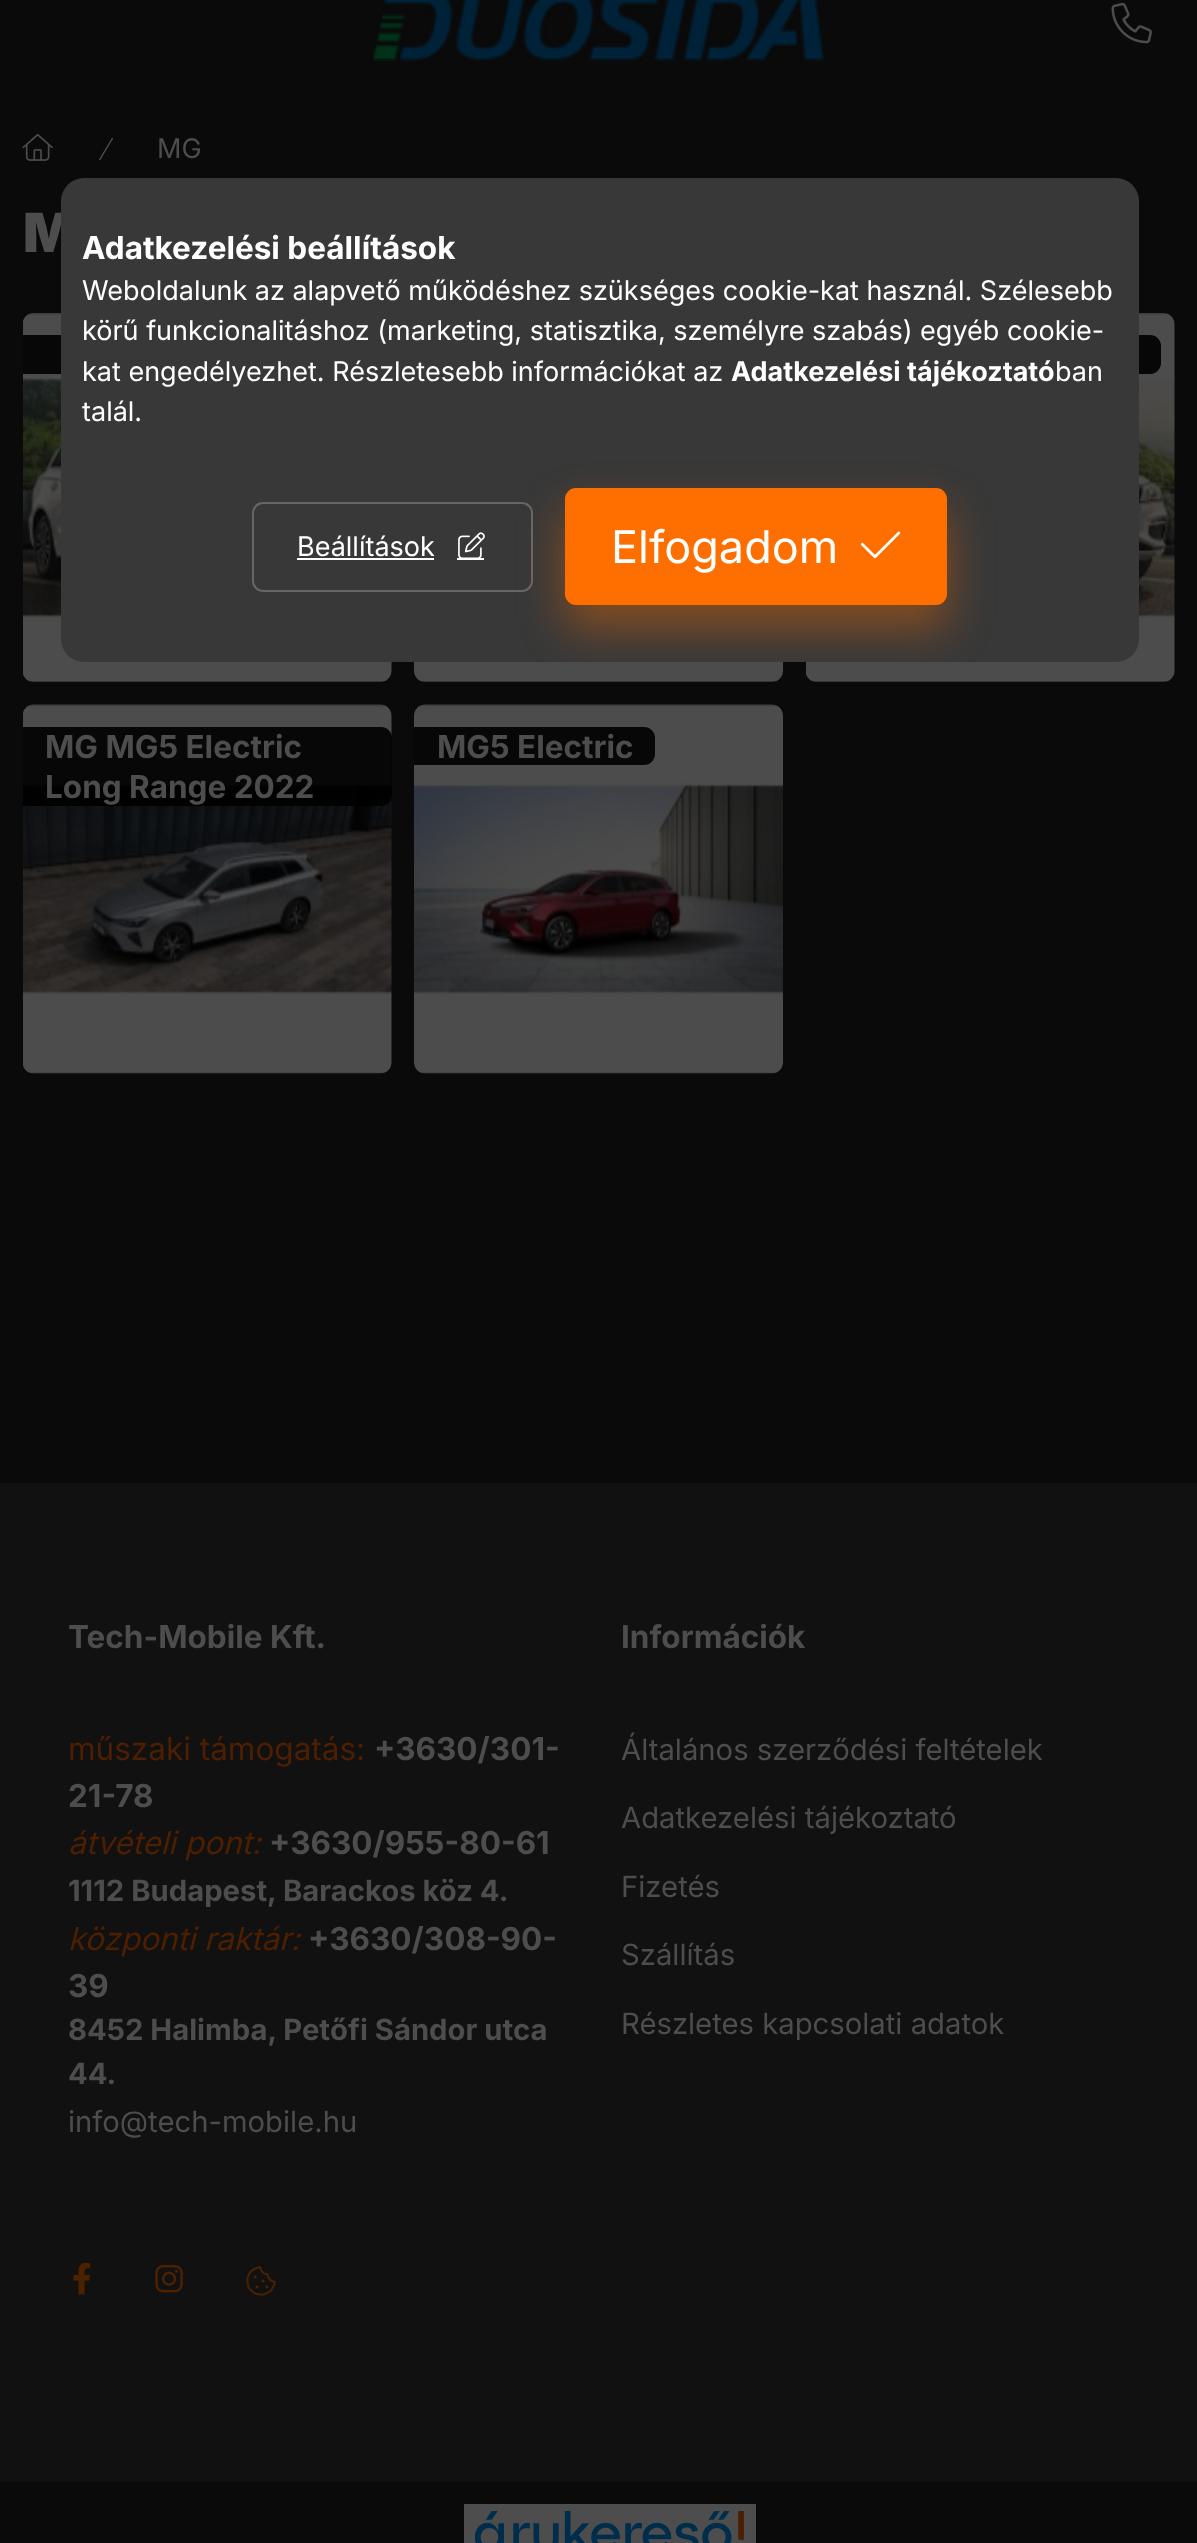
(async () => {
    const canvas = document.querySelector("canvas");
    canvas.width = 1197;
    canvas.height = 2543;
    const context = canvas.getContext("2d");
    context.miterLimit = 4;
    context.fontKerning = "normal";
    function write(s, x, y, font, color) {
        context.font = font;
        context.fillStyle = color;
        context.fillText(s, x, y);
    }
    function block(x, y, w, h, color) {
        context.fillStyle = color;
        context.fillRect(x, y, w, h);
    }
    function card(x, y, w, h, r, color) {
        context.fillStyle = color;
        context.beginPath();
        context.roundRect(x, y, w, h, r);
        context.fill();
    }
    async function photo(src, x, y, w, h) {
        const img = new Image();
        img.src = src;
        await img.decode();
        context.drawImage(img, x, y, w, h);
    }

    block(0, 0, 1197, 2543, "rgb(10, 10, 10)");
    await photo("media/1.png", 373, 0, 451, 61);
    await photo("media/2.png", 1111, 2, 41, 42);
    await photo("media/3.png", 22, 133, 31, 28);
    await photo("media/4.png", 99, 137, 14, 24);
    write("MG", 157, 158, "27px Inter", "rgb(77, 77, 77)");
    write("M", 23, 252, "900 54px Inter", "rgb(77, 77, 77)");
    await photo("media/5.png", 23, 313, 369, 369);
    block(23, 335, 38, 39, "rgba(0, 0, 0, 0.9)");
    await photo("media/6.png", 414, 662, 369, 20);
    await photo("media/7.png", 806, 313, 369, 369);
    context.beginPath();
    context.roundRect(806, 335, 355, 39, [0, 11, 11, 0]);
    context.fill();
    await photo("media/8.png", 23, 704, 369, 370);
    context.beginPath();
    context.roundRect(23, 727, 369, 79, [0, 11, 11, 0]);
    context.fill();
    write("MG MG5 Electric", 45, 758, "bold 31.5px Inter", "rgb(77, 77, 77)");
    write("Long Range 2022", 45, 798, "bold 31.5px Inter", "rgb(77, 77, 77)");
    await photo("media/9.png", 414, 704, 369, 370);
    context.fillStyle = "rgba(0, 0, 0, 0.9)";
    context.beginPath();
    context.roundRect(414, 727, 241, 38, [0, 11, 11, 0]);
    context.fill();
    write("MG5 Electric", 437, 758, "bold 31.5px Inter", "rgb(77, 77, 77)");
    block(0, 1483, 1197, 999, "rgb(17, 17, 17)");
    write("Tech-Mobile Kft.", 68, 1648, "bold 31.5px Inter", "rgb(77, 77, 77)");
    write("műszaki támogatás:", 68, 1760, "31.5px Inter", "rgb(77, 31, 0)");
    write("+3630/301-", 374, 1760, "bold 31.5px Inter", "rgb(77, 77, 77)");
    write("21-78", 68, 1807, "bold 31.5px Inter", "rgb(77, 77, 77)");
    write("átvételi pont:", 68, 1854, "italic 31.5px Inter", "rgb(77, 31, 0)");
    write("+3630/955-80-61", 269, 1854, "bold 31.5px Inter", "rgb(77, 77, 77)");
    write("1112 Budapest, Barackos köz 4.", 68, 1901, "bold 29.25px Inter", "rgb(77, 77, 77)");
    write("központi raktár:", 68, 1950, "italic 31.5px Inter", "rgb(77, 31, 0)");
    write("+3630/308-90-", 308, 1950, "bold 31.5px Inter", "rgb(77, 77, 77)");
    write("39", 68, 1997, "bold 31.5px Inter", "rgb(77, 77, 77)");
    write("8452 Halimba, Petőfi Sándor utca", 68, 2040, "bold 29.25px Inter", "rgb(77, 77, 77)");
    write("44.", 68, 2084, "bold 29.25px Inter", "rgb(77, 77, 77)");
    write("info@tech-mobile.hu", 68, 2132, "29.25px Inter", "rgb(77, 77, 77)");
    write("Információk", 621, 1648, "bold 31.5px Inter", "rgb(77, 77, 77)");
    write("Általános szerződési feltételek", 621, 1760, "29.25px Inter", "rgb(77, 77, 77)");
    write("Adatkezelési tájékoztató", 621, 1828, "29.25px Inter", "rgb(77, 77, 77)");
    write("Fizetés", 621, 1897, "29.25px Inter", "rgb(77, 77, 77)");
    write("Szállítás", 621, 1965, "29.25px Inter", "rgb(77, 77, 77)");
    write("Részletes kapcsolati adatok", 621, 2034, "29.25px Inter", "rgb(77, 77, 77)");
    await photo("media/10.png", 73, 2262, 18, 33);
    await photo("media/11.png", 155, 2264, 28, 29);
    await photo("media/12.png", 246, 2266, 30, 30);
    block(464, 2504, 292, 39, "rgb(77, 77, 77)");
    await photo("media/13.png", 475, 2511, 269, 32);
    card(61, 178, 1078, 484, 23, "rgb(56, 56, 56)");
    write("Adatkezelési beállítások", 82, 259, "bold 31.5px Inter", "rgb(255, 255, 255)");
    write("Weboldalunk az alapvető működéshez szükséges cookie-kat használ. Szélesebb", 82, 300, "27px Inter", "rgb(255, 255, 255)");
    write("körű funkcionalitáshoz (marketing, statisztika, személyre szabás) egyéb cookie-", 82, 340, "27px Inter", "rgb(255, 255, 255)");
    write("kat engedélyezhet. Részletesebb információkat az", 82, 381, "27px Inter", "rgb(255, 255, 255)");
    write("Adatkezelési tájékoztató", 731, 381, "bold 27px Inter", "rgb(255, 255, 255)");
    write("ban", 1055, 381, "27px Inter", "rgb(255, 255, 255)");
    write("talál.", 82, 421, "27px Inter", "rgb(255, 255, 255)");
    context.beginPath();
    context.roundRect(253, 503, 279, 88, 10);
    context.strokeStyle = "rgb(102, 102, 102)";
    context.lineWidth = 2;
    context.stroke();
    write("Beállítások", 297, 556, "27px Inter", "rgb(255, 255, 255)");
    block(297, 558, 137, 2, "rgb(255, 255, 255)");
    await photo("media/14.png", 458, 532, 27, 26);
    block(457, 558, 27, 2, "rgb(255, 255, 255)");
    context.save();
    context.beginPath();
    context.roundRect(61, 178, 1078, 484, 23);
    context.clip();
    context.fillStyle = "rgba(255, 111, 0, 0.4)";
    context.filter = "blur(22.5px)";
    context.beginPath();
    context.roundRect(565, 511, 382, 117, 11);
    context.fill();
    context.filter = "none";
    context.restore();
    context.fillStyle = "rgb(255, 111, 0)";
    context.beginPath();
    context.roundRect(566, 489, 380, 115, 10);
    context.fill();
    context.strokeStyle = "rgb(255, 111, 0)";
    context.stroke();
    write("Elfogadom", 611, 563, "45px Inter", "rgb(255, 255, 255)");
    await photo("media/15.png", 860, 531, 41, 28);
})();
